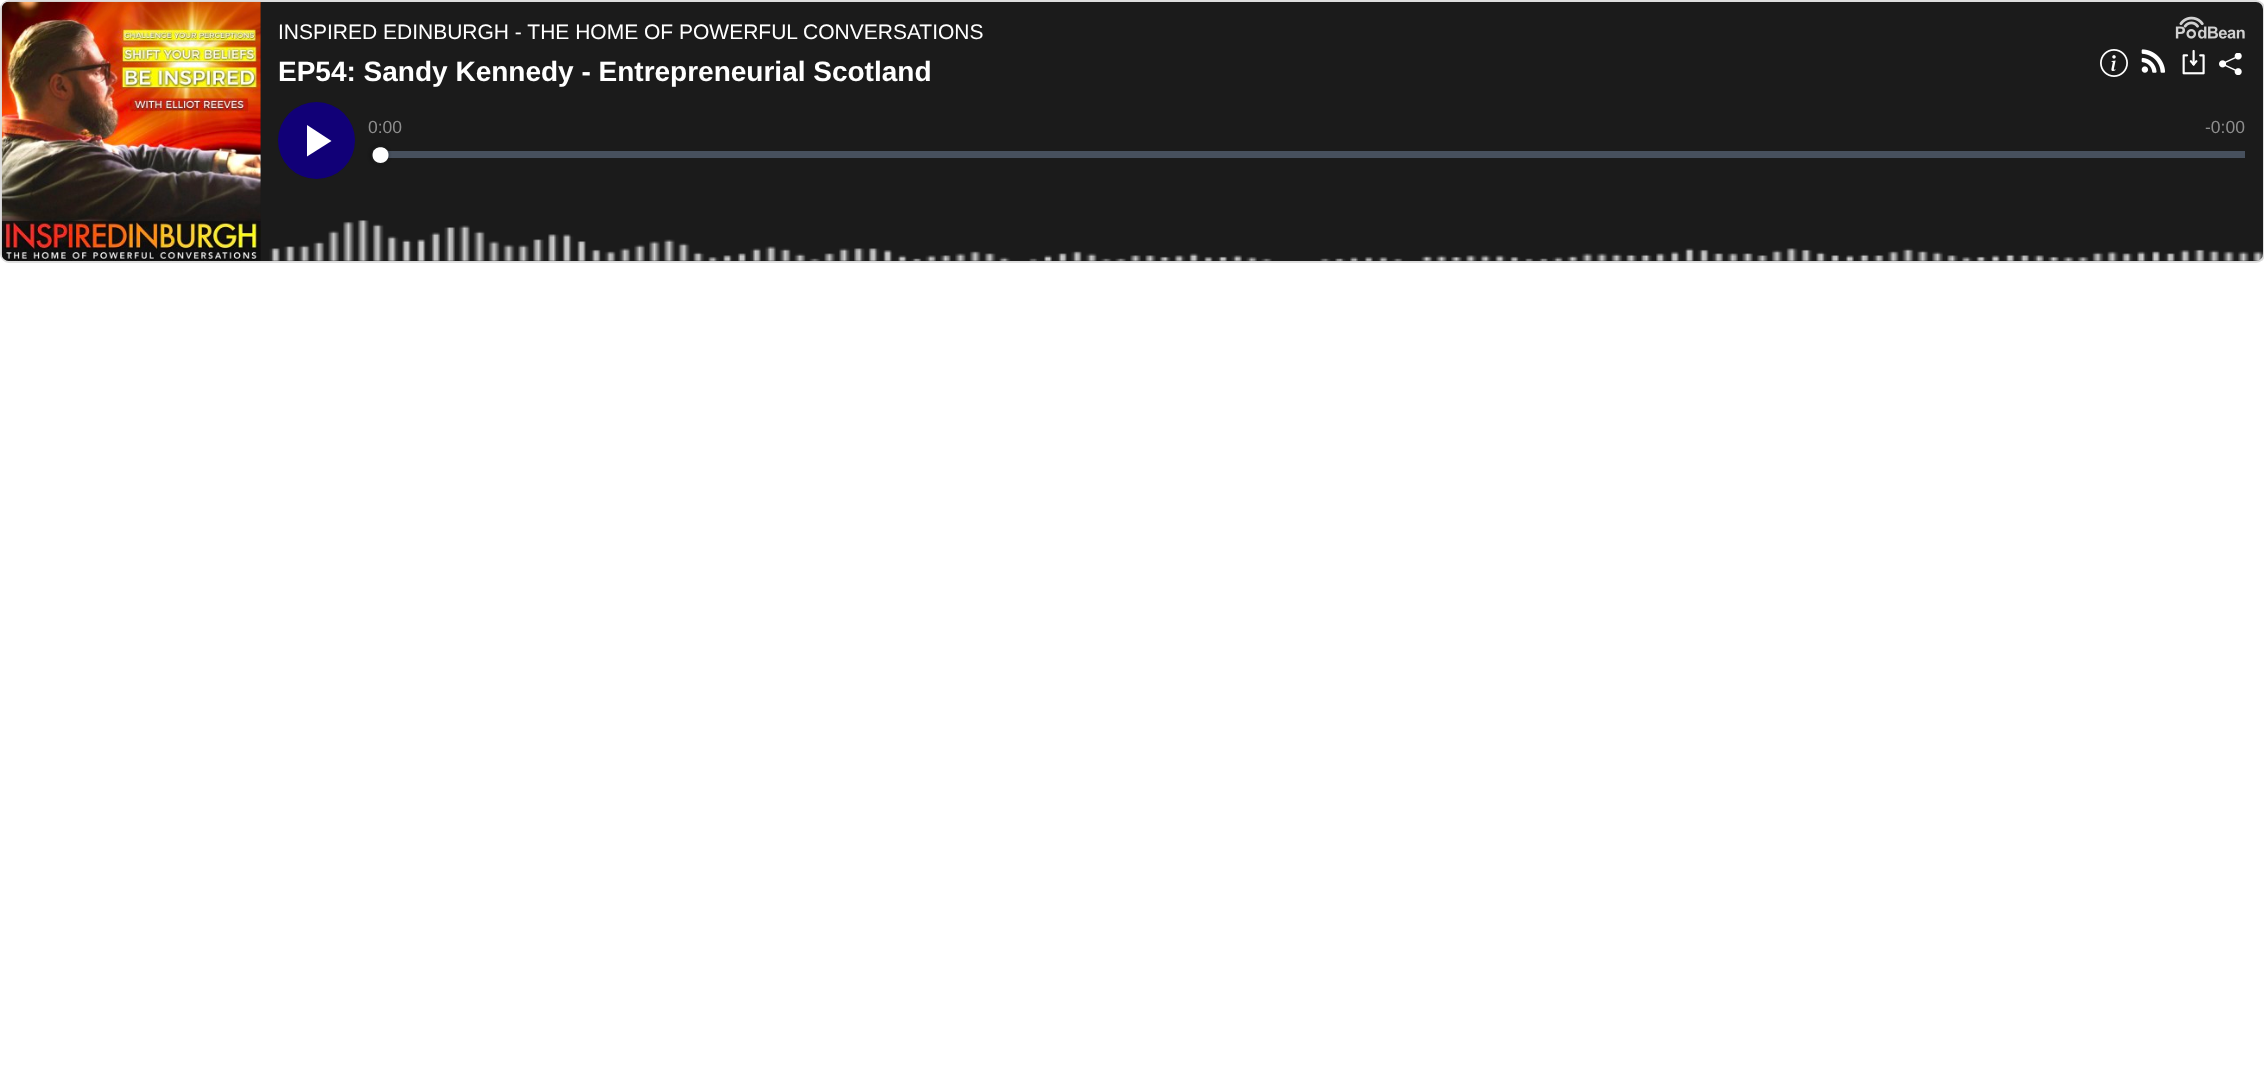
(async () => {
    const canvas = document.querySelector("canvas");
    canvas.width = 2264;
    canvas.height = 1082;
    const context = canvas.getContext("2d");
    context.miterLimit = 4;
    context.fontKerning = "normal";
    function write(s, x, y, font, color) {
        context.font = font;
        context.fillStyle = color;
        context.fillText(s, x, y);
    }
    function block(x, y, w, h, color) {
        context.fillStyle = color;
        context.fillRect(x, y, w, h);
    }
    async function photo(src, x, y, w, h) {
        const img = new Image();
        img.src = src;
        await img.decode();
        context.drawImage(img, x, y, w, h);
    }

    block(0, 0, 2264, 1082, "rgb(255, 255, 255)");
    context.fillStyle = "rgb(27, 27, 27)";
    context.beginPath();
    context.roundRect(1, 1, 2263, 261, 8);
    context.fill();
    context.strokeStyle = "rgb(222, 222, 222)";
    context.lineWidth = 2;
    context.stroke();
    await photo("media/1.png", 1, 1, 260, 260);
    write("INSPIRED EDINBURGH - THE HOME OF POWERFUL CONVERSATIONS", 278, 39, "21px Liberation Sans", "rgb(255, 255, 255)");
    await photo("media/2.png", 2175, 16, 70, 23);
    write("EP54: Sandy Kennedy - Entrepreneurial Scotland", 278, 81, "bold 28px Liberation Sans", "rgb(255, 255, 255)");
    await photo("media/3.png", 2100, 49, 28, 28);
    await photo("media/4.png", 2141, 49, 25, 24);
    await photo("media/5.png", 2182, 49, 23, 26);
    await photo("media/6.png", 2219, 53, 23, 22);
    context.fillStyle = "rgb(17, 0, 119)";
    context.beginPath();
    context.arc(316.5, 140.5, 38.5, 0, Math.PI * 2);
    context.fill();
    context.fillStyle = "rgb(255, 255, 255)";
    context.beginPath();
    context.moveTo(307, 125);
    context.lineTo(307, 156.5);
    context.lineTo(331.5, 141);
    context.closePath();
    context.fill();
    write("0:00", 368, 133, "17.5px Liberation Sans", "rgb(141, 141, 141)");
    write("-0:00", 2205, 133, "17.5px Liberation Sans", "rgb(141, 141, 141)");
    block(373, 151, 1872, 7, "rgb(71, 80, 93)");
    context.save();
    context.beginPath();
    context.moveTo(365, 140);
    context.lineTo(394, 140);
    context.lineTo(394, 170);
    context.lineTo(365, 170);
    context.closePath();
    context.moveTo(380, 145);
    context.bezierCurveTo(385, 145, 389, 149, 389, 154);
    context.lineTo(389, 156);
    context.bezierCurveTo(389, 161, 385, 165, 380, 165);
    context.bezierCurveTo(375, 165, 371, 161, 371, 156);
    context.lineTo(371, 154);
    context.bezierCurveTo(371, 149, 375, 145, 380, 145);
    context.closePath();
    context.clip("evenodd");
    context.fillStyle = "rgba(0, 0, 0, 0.14)";
    context.filter = "blur(1px)";
    context.beginPath();
    context.roundRect(369, 144, 21, 22, 10.5);
    context.fill();
    context.filter = "none";
    context.restore();
    context.fillStyle = "rgb(255, 255, 255)";
    context.beginPath();
    context.moveTo(372.5, 155);
    context.bezierCurveTo(372.5, 165.5, 388.5, 165.5, 388.5, 155);
    context.bezierCurveTo(388.5, 144.5, 372.5, 144.5, 372.5, 155);
    context.closePath();
    context.fill();
    await photo("media/7.png", 269, 220, 1994, 41);
})();
